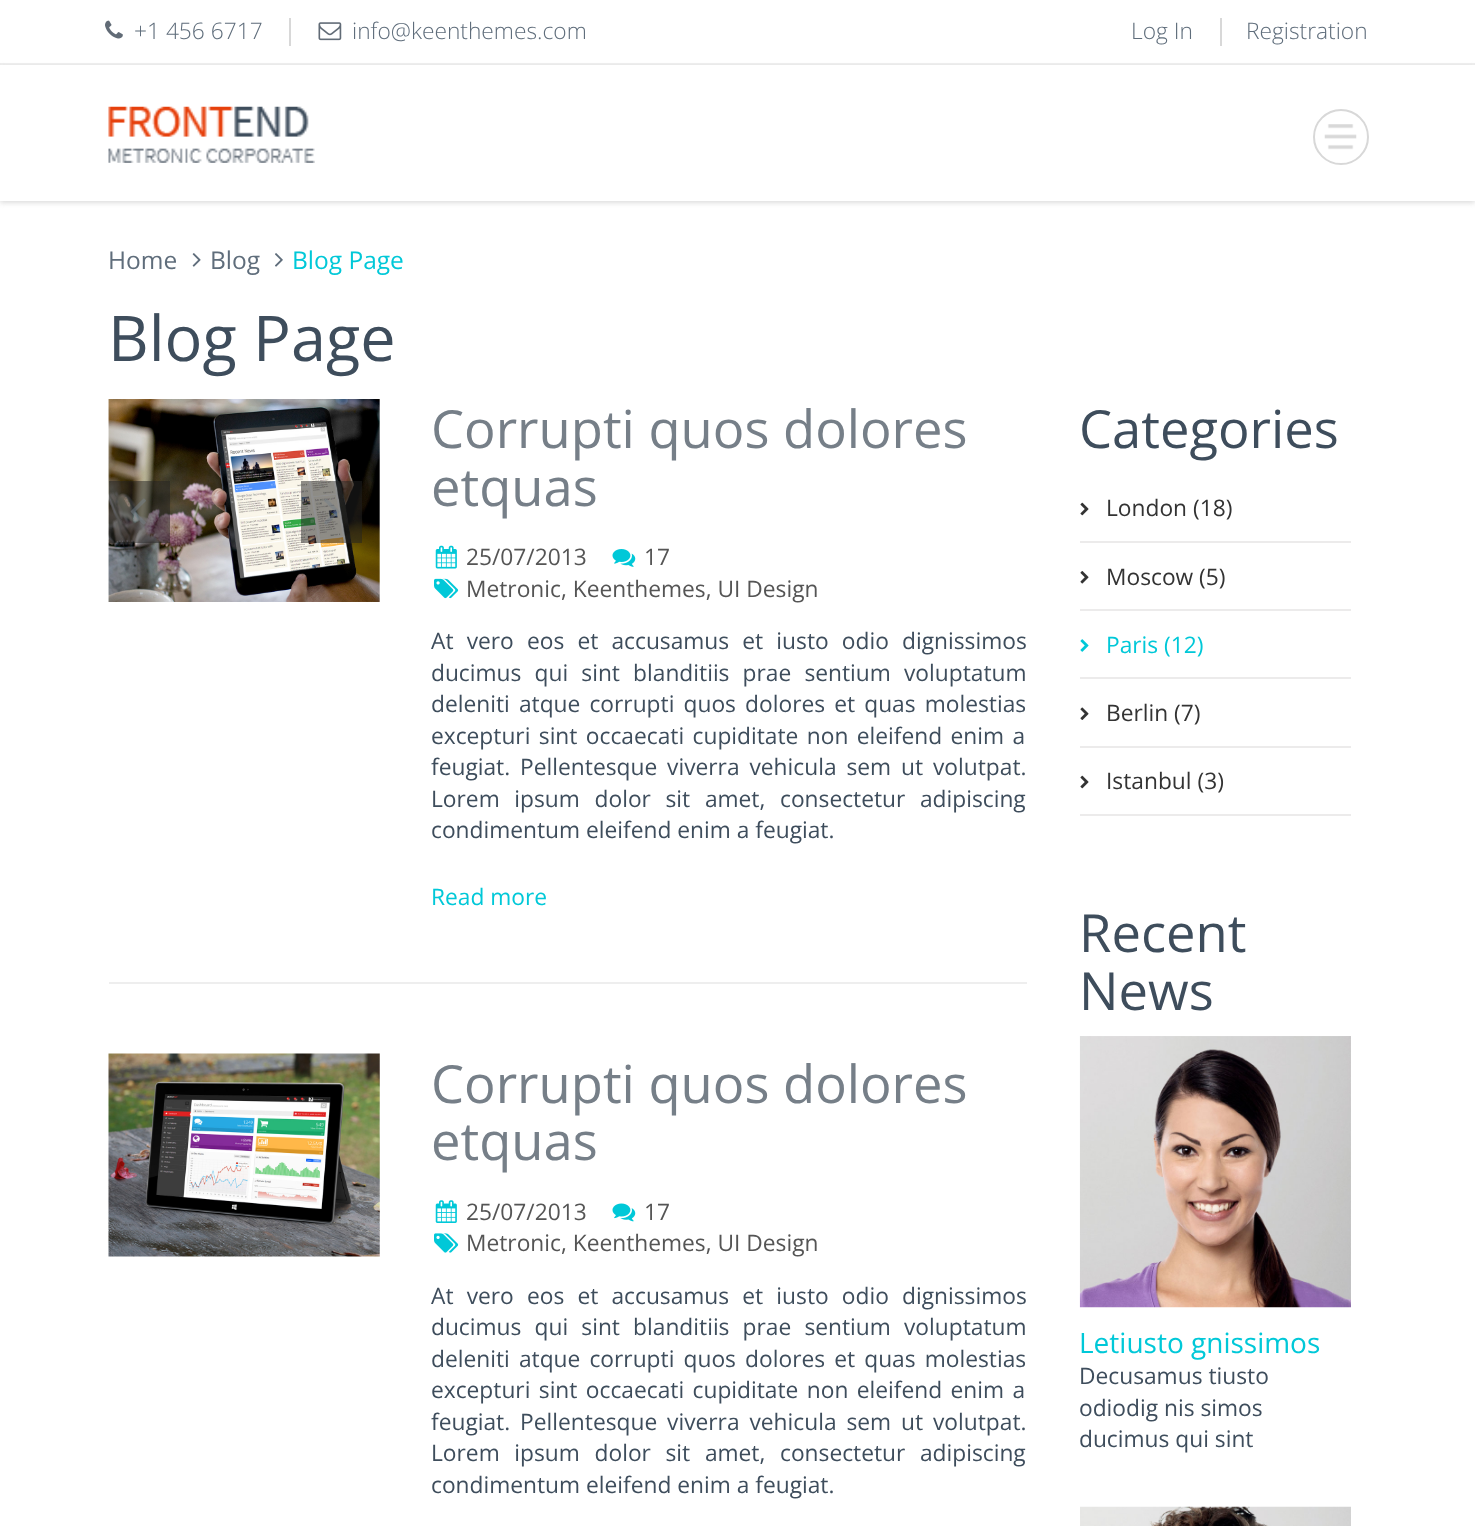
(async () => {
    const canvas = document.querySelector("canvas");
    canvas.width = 1475;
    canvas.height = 1526;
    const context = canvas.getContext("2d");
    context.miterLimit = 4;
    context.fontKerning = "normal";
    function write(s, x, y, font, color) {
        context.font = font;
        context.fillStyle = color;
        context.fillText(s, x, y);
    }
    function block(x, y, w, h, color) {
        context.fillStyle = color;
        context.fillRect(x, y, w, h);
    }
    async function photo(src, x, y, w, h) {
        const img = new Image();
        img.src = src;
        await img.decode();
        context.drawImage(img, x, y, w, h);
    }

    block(0, 0, 1475, 1526, "rgb(255, 255, 255)");
    block(0, 63, 1475, 2, "rgb(238, 238, 238)");
    block(289, 18, 2, 28, "rgb(216, 216, 216)");
    await photo("media/1.png", 105, 20, 18, 19);
    write("+1 456 6717", 134, 39, "300 22.75px Open Sans", "rgb(95, 109, 123)");
    await photo("media/2.png", 318, 22, 24, 19);
    write("info@keenthemes.com", 352, 39, "300 22.75px Open Sans", "rgb(95, 109, 123)");
    block(1220, 18, 2, 28, "rgb(216, 216, 216)");
    write("Log In", 1131, 39, "300 22.75px Open Sans", "rgb(95, 109, 123)");
    write("Registration", 1246, 39, "300 22.75px Open Sans", "rgb(95, 109, 123)");
    context.save();
    context.beginPath();
    context.moveTo(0, 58);
    context.lineTo(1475, 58);
    context.lineTo(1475, 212);
    context.lineTo(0, 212);
    context.closePath();
    context.moveTo(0, 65);
    context.lineTo(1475, 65);
    context.lineTo(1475, 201);
    context.lineTo(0, 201);
    context.closePath();
    context.clip("evenodd");
    context.fillStyle = "rgb(221, 221, 221)";
    context.filter = "blur(2.5px)";
    context.beginPath();
    context.rect(0, 67, 1475, 136);
    context.fill();
    context.filter = "none";
    context.restore();
    await photo("media/3.png", 108, 106, 207, 57);
    await photo("media/4.png", 1324, 124, 33, 26);
    context.beginPath();
    context.arc(1341, 137, 27, 0, Math.PI * 2);
    context.strokeStyle = "rgb(216, 216, 216)";
    context.lineWidth = 2;
    context.stroke();
    write("Home", 108, 269, "24.5px Open Sans", "rgb(95, 109, 123)");
    await photo("media/5.png", 192, 253, 9, 14);
    write("Blog", 210, 269, "24.5px Open Sans", "rgb(95, 109, 123)");
    await photo("media/6.png", 275, 253, 8, 14);
    write("Blog Page", 292, 269, "24.5px Open Sans", "rgb(0, 200, 216)");
    write("Blog Page", 108, 361, "63px Open Sans", "rgb(62, 77, 92)");
    await photo("media/7.png", 108, 399, 272, 203);
    block(109, 481, 61, 62, "rgba(34, 34, 34, 0.5)");
    await photo("media/8.png", 130, 498, 16, 27);
    block(301, 481, 61, 62, "rgba(34, 34, 34, 0.5)");
    await photo("media/9.png", 324, 499, 16, 26);
    write("Corrupti quos dolores", 431, 448, "52.5px Open Sans", "rgb(118, 127, 136)");
    write("etquas", 431, 506, "52.5px Open Sans", "rgb(118, 127, 136)");
    await photo("media/10.png", 435, 545, 22, 24);
    write("25/07/2013", 466, 565, "22.75px Open Sans", "rgb(85, 85, 85)");
    await photo("media/11.png", 612, 549, 24, 18);
    write("17", 644, 565, "22.75px Open Sans", "rgb(85, 85, 85)");
    await photo("media/12.png", 434, 578, 25, 21);
    write("Metronic, Keenthemes, UI Design", 466, 597, "22.75px Open Sans", "rgb(85, 85, 85)");
    context.wordSpacing = "7.25px";
    write("At vero eos et accusamus et iusto odio dignissimos", 431, 649, "22.75px Open Sans", "rgb(62, 77, 92)");
    write("ducimus qui sint blanditiis prae sentium voluptatum", 431, 681, "22.75px Open Sans", "rgb(62, 77, 92)");
    context.wordSpacing = "3.25px";
    write("deleniti atque corrupti quos dolores et quas molestias", 431, 712, "22.75px Open Sans", "rgb(62, 77, 92)");
    context.wordSpacing = "2.5px";
    write("excepturi sint occaecati cupiditate non eleifend enim a", 431, 744, "22.75px Open Sans", "rgb(62, 77, 92)");
    context.wordSpacing = "4px";
    write("feugiat. Pellentesque viverra vehicula sem ut volutpat.", 431, 775, "22.75px Open Sans", "rgb(62, 77, 92)");
    context.wordSpacing = "8.75px";
    write("Lorem ipsum dolor sit amet, consectetur adipiscing", 431, 807, "22.75px Open Sans", "rgb(62, 77, 92)");
    context.wordSpacing = "0px";
    write("condimentum eleifend enim a feugiat.", 431, 838, "22.75px Open Sans", "rgb(62, 77, 92)");
    write("Read more", 431, 905, "22.75px Open Sans", "rgb(0, 200, 216)");
    block(109, 982, 918, 2, "rgb(238, 238, 238)");
    await photo("media/13.png", 108, 1053, 272, 204);
    write("Corrupti quos dolores", 431, 1103, "52.5px Open Sans", "rgb(118, 127, 136)");
    write("etquas", 431, 1160, "52.5px Open Sans", "rgb(118, 127, 136)");
    await photo("media/14.png", 435, 1200, 22, 23);
    write("25/07/2013", 466, 1220, "22.75px Open Sans", "rgb(85, 85, 85)");
    await photo("media/15.png", 612, 1203, 24, 19);
    write("17", 644, 1220, "22.75px Open Sans", "rgb(85, 85, 85)");
    await photo("media/16.png", 434, 1233, 25, 20);
    write("Metronic, Keenthemes, UI Design", 466, 1251, "22.75px Open Sans", "rgb(85, 85, 85)");
    context.wordSpacing = "7.25px";
    write("At vero eos et accusamus et iusto odio dignissimos", 431, 1304, "22.75px Open Sans", "rgb(62, 77, 92)");
    write("ducimus qui sint blanditiis prae sentium voluptatum", 431, 1335, "22.75px Open Sans", "rgb(62, 77, 92)");
    context.wordSpacing = "3.25px";
    write("deleniti atque corrupti quos dolores et quas molestias", 431, 1367, "22.75px Open Sans", "rgb(62, 77, 92)");
    context.wordSpacing = "2.5px";
    write("excepturi sint occaecati cupiditate non eleifend enim a", 431, 1398, "22.75px Open Sans", "rgb(62, 77, 92)");
    context.wordSpacing = "4px";
    write("feugiat. Pellentesque viverra vehicula sem ut volutpat.", 431, 1430, "22.75px Open Sans", "rgb(62, 77, 92)");
    context.wordSpacing = "8.75px";
    write("Lorem ipsum dolor sit amet, consectetur adipiscing", 431, 1461, "22.75px Open Sans", "rgb(62, 77, 92)");
    context.wordSpacing = "0px";
    write("condimentum eleifend enim a feugiat.", 431, 1493, "22.75px Open Sans", "rgb(62, 77, 92)");
    write("Categories", 1079, 448, "52.5px Open Sans", "rgb(62, 77, 92)");
    block(1080, 541, 271, 2, "rgb(236, 235, 235)");
    await photo("media/17.png", 1080, 502, 9, 14);
    write("London (18)", 1106, 516, "22.75px Open Sans", "rgb(51, 51, 51)");
    block(1080, 609, 271, 2, "rgb(236, 235, 235)");
    await photo("media/18.png", 1080, 571, 9, 13);
    write("Moscow (5)", 1106, 585, "22.75px Open Sans", "rgb(51, 51, 51)");
    block(1080, 677, 271, 2, "rgb(236, 235, 235)");
    await photo("media/19.png", 1080, 639, 9, 13);
    write("Paris (12)", 1106, 653, "22.75px Open Sans", "rgb(0, 200, 216)");
    block(1080, 746, 271, 2, "rgb(236, 235, 235)");
    await photo("media/20.png", 1080, 707, 9, 13);
    write("Berlin (7)", 1106, 721, "22.75px Open Sans", "rgb(51, 51, 51)");
    block(1080, 814, 271, 2, "rgb(236, 235, 235)");
    await photo("media/17.png", 1080, 775, 9, 14);
    write("Istanbul (3)", 1106, 789, "22.75px Open Sans", "rgb(51, 51, 51)");
    write("Recent", 1079, 952, "52.5px Open Sans", "rgb(62, 77, 92)");
    write("News", 1079, 1010, "52.5px Open Sans", "rgb(62, 77, 92)");
    await photo("media/21.png", 1079, 1036, 272, 272);
    write("Letiusto gnissimos", 1079, 1353, "28px Open Sans", "rgb(0, 200, 216)");
    write("Decusamus tiusto", 1079, 1384, "22.75px Open Sans", "rgb(62, 77, 92)");
    write("odiodig nis simos", 1079, 1416, "22.75px Open Sans", "rgb(62, 77, 92)");
    write("ducimus qui sint", 1079, 1447, "22.75px Open Sans", "rgb(62, 77, 92)");
    await photo("media/22.png", 1080, 1506, 271, 20);
})();
